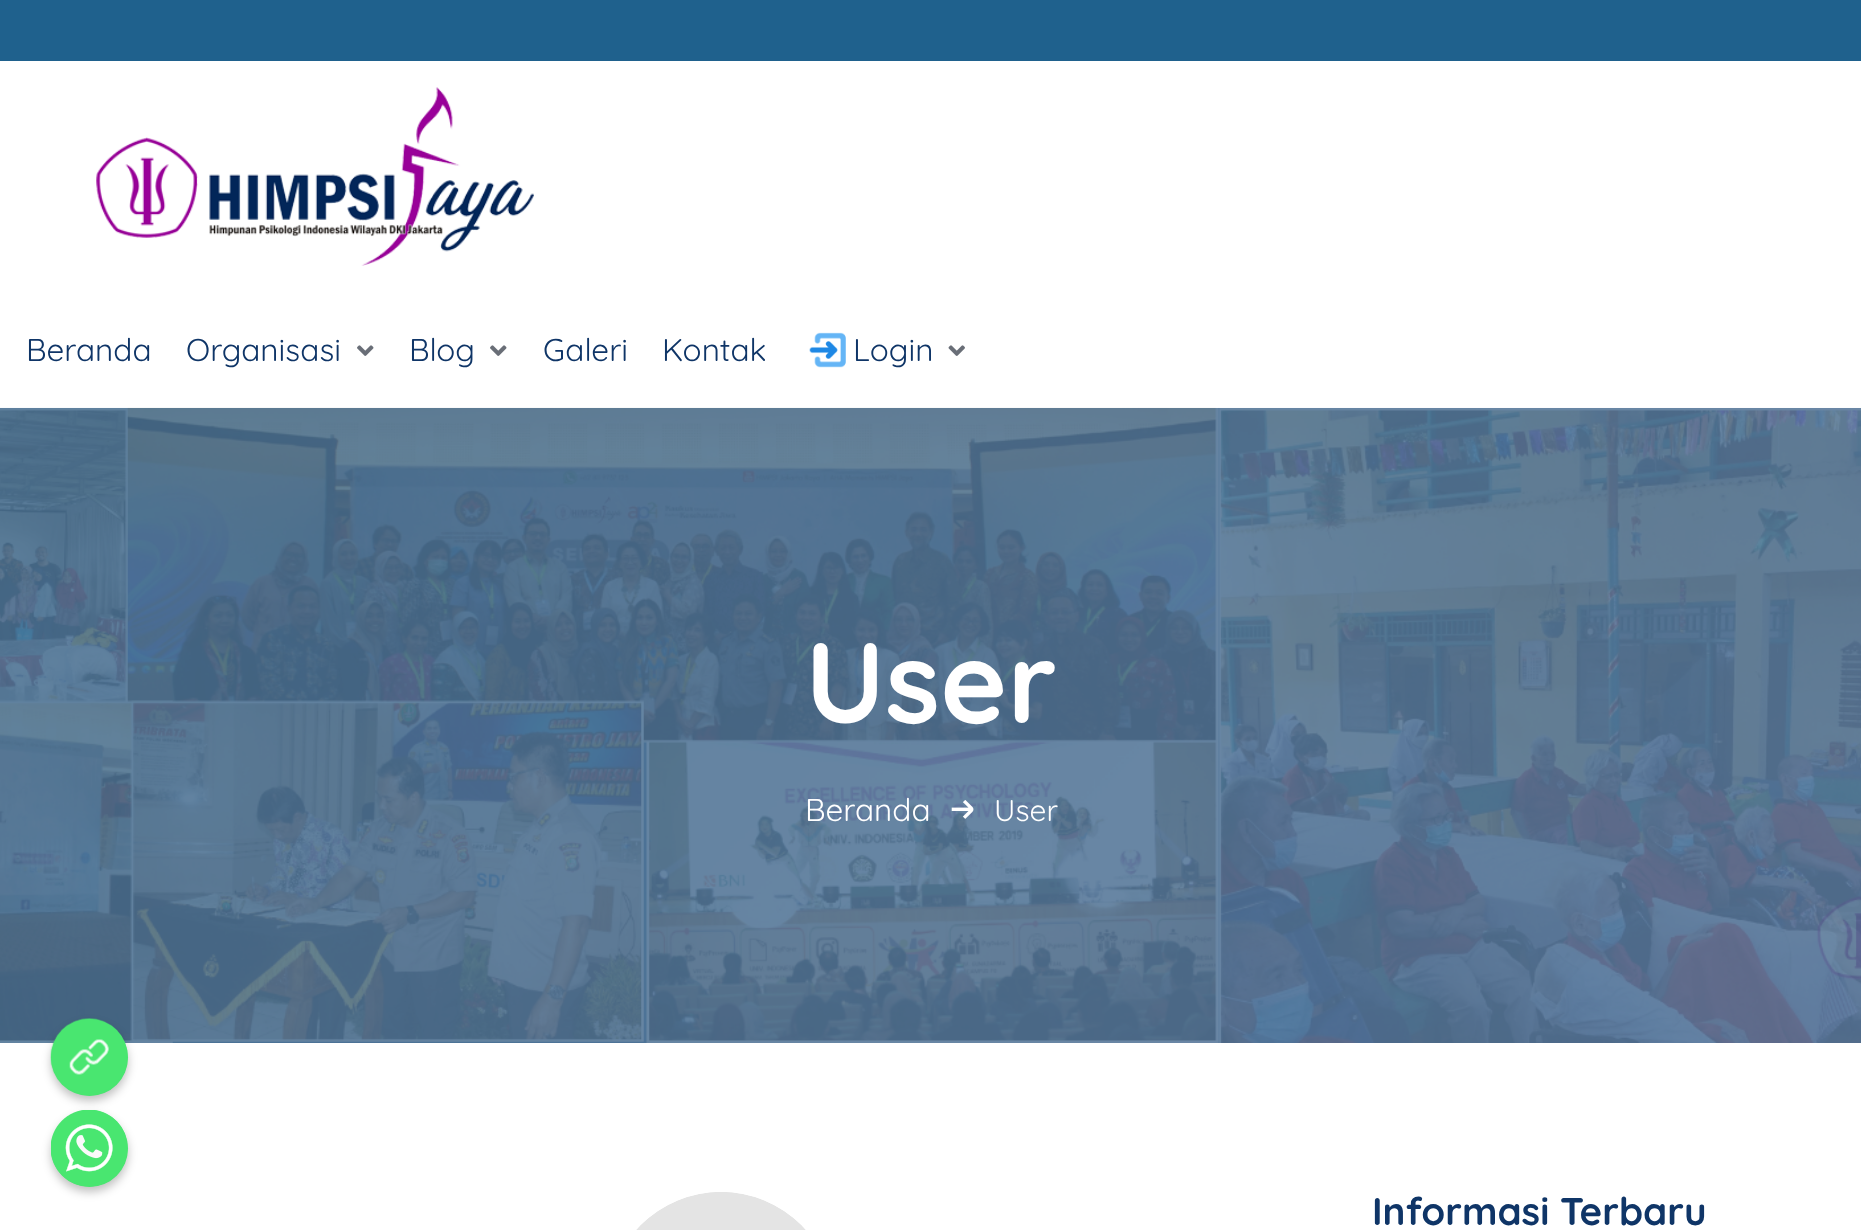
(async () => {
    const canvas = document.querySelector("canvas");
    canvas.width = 1861;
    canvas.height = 1230;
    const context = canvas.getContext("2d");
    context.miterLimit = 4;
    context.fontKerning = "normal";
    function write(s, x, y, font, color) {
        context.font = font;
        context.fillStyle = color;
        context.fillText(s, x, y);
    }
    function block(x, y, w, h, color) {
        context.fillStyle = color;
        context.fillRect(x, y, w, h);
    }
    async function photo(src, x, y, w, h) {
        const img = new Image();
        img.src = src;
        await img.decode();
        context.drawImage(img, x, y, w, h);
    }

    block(0, 0, 1861, 1230, "rgb(255, 255, 255)");
    block(0, 0, 1861, 61, "rgb(31, 97, 141)");
    await photo("media/1.png", 96, 87, 438, 179);
    write("Beranda", 26, 361, "31.5px Quicksand", "rgb(15, 53, 103)");
    write("Organisasi", 186, 361, "31.5px Quicksand", "rgb(15, 53, 103)");
    await photo("media/2.png", 357, 345, 17, 11);
    write("Blog", 409, 361, "31.5px Quicksand", "rgb(15, 53, 103)");
    await photo("media/2.png", 490, 345, 17, 11);
    write("Galeri", 543, 361, "31.5px Quicksand", "rgb(15, 53, 103)");
    write("Kontak", 662, 361, "31.5px Quicksand", "rgb(15, 53, 103)");
    await photo("media/3.png", 809, 332, 37, 36);
    write("Login", 853, 361, "31.5px Quicksand", "rgb(15, 53, 103)");
    await photo("media/4.png", 948, 345, 17, 11);
    await photo("media/5.png", 0, 407, 1861, 636);
    write("User", 805, 723, "bold 114px Quicksand", "rgb(255, 255, 255)");
    write("Beranda", 805, 821, "31.5px Quicksand", "rgb(255, 255, 255)");
    await photo("media/6.png", 951, 800, 23, 19);
    write("User", 994, 821, "30px Quicksand", "rgb(255, 255, 255)");
    await photo("media/7.png", 636, 1192, 170, 38);
    write("Informasi Terbaru", 1372, 1225, "bold 38.5px Quicksand", "rgb(15, 53, 103)");
    context.fillStyle = "rgba(0, 0, 0, 0.25)";
    context.filter = "blur(5px)";
    context.beginPath();
    context.roundRect(51, 1024, 77, 77, 38.5);
    context.fill();
    context.filter = "none";
    context.fillStyle = "rgb(73, 230, 112)";
    context.beginPath();
    context.arc(89.5, 1057.5, 38.5, 0, Math.PI * 2);
    context.fill();
    await photo("media/8.png", 50, 1018, 78, 78);
    context.fillStyle = "rgba(0, 0, 0, 0.25)";
    context.filter = "blur(5px)";
    context.beginPath();
    context.roundRect(51, 1115, 77, 77, 38.5);
    context.fill();
    context.filter = "none";
    context.fillStyle = "rgb(73, 230, 112)";
    context.beginPath();
    context.arc(89.5, 1148.5, 38.5, 0, Math.PI * 2);
    context.fill();
    await photo("media/9.png", 51, 1110, 77, 77);
})();
